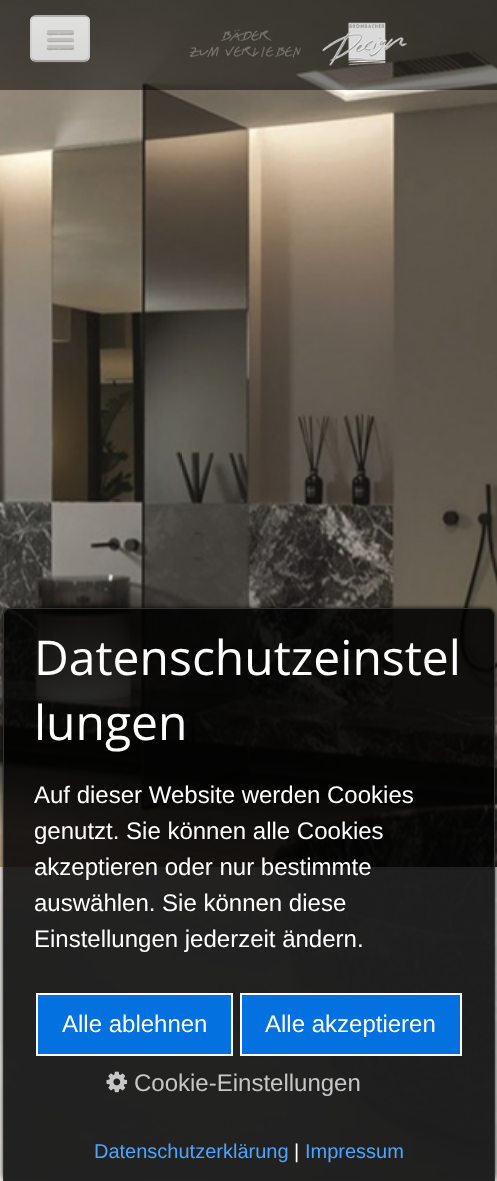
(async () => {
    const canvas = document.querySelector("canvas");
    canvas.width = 497;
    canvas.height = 1181;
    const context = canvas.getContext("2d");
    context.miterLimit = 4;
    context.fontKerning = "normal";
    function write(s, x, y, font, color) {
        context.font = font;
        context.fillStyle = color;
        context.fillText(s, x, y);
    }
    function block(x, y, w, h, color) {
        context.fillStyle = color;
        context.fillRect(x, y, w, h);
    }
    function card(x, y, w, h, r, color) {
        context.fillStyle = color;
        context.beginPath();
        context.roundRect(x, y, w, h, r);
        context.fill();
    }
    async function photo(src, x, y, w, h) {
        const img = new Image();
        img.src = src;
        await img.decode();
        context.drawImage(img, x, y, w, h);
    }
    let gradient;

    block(0, 0, 497, 1181, "rgb(255, 255, 255)");
    await photo("media/1.png", 0, 0, 497, 1181);
    block(0, 0, 497, 90, "rgba(0, 0, 0, 0.5)");
    context.fillStyle = "rgba(255, 255, 255, 0.05)";
    context.beginPath();
    context.moveTo(30, 56);
    context.bezierCurveTo(30, 65, 37, 63, 44, 63);
    context.lineTo(76, 63);
    context.bezierCurveTo(83, 63, 90, 65, 90, 56);
    context.bezierCurveTo(90, 59, 87, 62, 84, 62);
    context.lineTo(36, 62);
    context.bezierCurveTo(33, 62, 30, 59, 30, 56);
    context.closePath();
    context.fill();
    card(30, 15, 60, 47, 6, "rgba(237, 237, 237, 0.7)");
    context.save();
    context.beginPath();
    context.roundRect(30, 15, 60, 47, 6);
    context.clip();
    gradient = context.createLinearGradient(60, 16, 60, 60);
    gradient.addColorStop(0, "rgba(242, 242, 242, 0.7)");
    gradient.addColorStop(1, "rgba(229, 229, 229, 0.7)");
    context.fillStyle = gradient;
    context.fillRect(30, 17, 60, 43);
    context.restore();
    context.fillStyle = "rgba(255, 255, 255, 0.07)";
    context.beginPath();
    context.moveTo(36, 18);
    context.lineTo(76, 18);
    context.bezierCurveTo(91, 18, 88, 19, 88, 34);
    context.lineTo(88, 58);
    context.bezierCurveTo(89, 57, 89, 56, 89, 55);
    context.lineTo(89, 22);
    context.bezierCurveTo(89, 19, 87, 17, 84, 17);
    context.lineTo(37, 17);
    context.bezierCurveTo(34, 17, 32, 19, 32, 22);
    context.bezierCurveTo(32, 20, 34, 18, 36, 18);
    context.closePath();
    context.fill();
    context.beginPath();
    context.moveTo(87.5, 59);
    context.bezierCurveTo(86.5, 60, 85.5, 61, 84, 61);
    context.lineTo(36, 61);
    context.bezierCurveTo(34.5, 61, 33.5, 60, 32.5, 59);
    context.strokeStyle = "rgba(0, 0, 0, 0.17)";
    context.lineWidth = 1.5;
    context.stroke();
    context.beginPath();
    context.moveTo(32.5, 59);
    context.bezierCurveTo(31.5, 58, 31, 57, 31, 55.5);
    context.lineTo(31, 21);
    context.bezierCurveTo(31, 19.5, 31.5, 18.5, 32.5, 17.5);
    context.bezierCurveTo(33.5, 16.5, 34.5, 16, 36, 16);
    context.lineTo(84, 16);
    context.bezierCurveTo(85.5, 16, 86.5, 16.5, 87.5, 17.5);
    context.bezierCurveTo(88.5, 18.5, 89, 19.5, 89, 21);
    context.lineTo(89, 55.5);
    context.bezierCurveTo(89, 57, 88.5, 58, 87.5, 59);
    context.strokeStyle = "rgba(0, 0, 0, 0.07)";
    context.stroke();
    context.fillStyle = "rgb(171, 170, 169)";
    context.beginPath();
    context.moveTo(47, 33);
    context.bezierCurveTo(45.5, 36, 52.5, 35, 52.5, 35);
    context.lineTo(73, 35);
    context.bezierCurveTo(74, 34.5, 74.5, 33, 73.5, 32);
    context.lineTo(72, 33);
    context.bezierCurveTo(70, 33.5, 48, 33.5, 47, 33);
    context.closePath();
    context.fill();
    card(47, 30, 27, 3, 1.5, "rgb(191, 190, 188)");
    context.fillStyle = "rgb(170, 169, 168)";
    context.beginPath();
    context.moveTo(47, 40);
    context.bezierCurveTo(46.5, 43, 52, 42, 52.5, 42);
    context.lineTo(72.5, 42);
    context.bezierCurveTo(74, 42, 74.5, 40, 73.5, 39.5);
    context.lineTo(72.5, 40.5);
    context.bezierCurveTo(71, 41, 47.5, 40.5, 47, 40);
    context.closePath();
    context.fill();
    card(47, 38, 27, 3, 1.5, "rgb(191, 190, 188)");
    context.fillStyle = "rgb(168, 168, 167)";
    context.beginPath();
    context.moveTo(47, 48);
    context.bezierCurveTo(45.5, 51, 52.5, 50, 52.5, 50);
    context.lineTo(73, 50);
    context.bezierCurveTo(74, 49.5, 74.5, 48, 73.5, 47);
    context.lineTo(72, 48);
    context.bezierCurveTo(70, 48.5, 48, 48.5, 47, 48);
    context.closePath();
    context.fill();
    card(47, 45, 27, 3, 1.5, "rgb(192, 190, 188)");
    await photo("media/2.png", 189, 22, 219, 44);
    block(0, 867, 497, 314, "rgba(255, 255, 255, 0.75)");
    context.save();
    context.beginPath();
    context.moveTo(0, 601);
    context.lineTo(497, 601);
    context.lineTo(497, 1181);
    context.lineTo(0, 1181);
    context.closePath();
    context.moveTo(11, 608);
    context.lineTo(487, 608);
    context.bezierCurveTo(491.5, 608, 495, 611.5, 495, 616);
    context.lineTo(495, 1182);
    context.lineTo(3, 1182);
    context.lineTo(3, 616);
    context.bezierCurveTo(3, 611.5, 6.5, 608, 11, 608);
    context.closePath();
    context.clip("evenodd");
    context.fillStyle = "rgba(0, 0, 0, 0.8)";
    context.filter = "blur(2px)";
    context.beginPath();
    context.roundRect(3, 608, 492, 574, 8);
    context.fill();
    context.filter = "none";
    context.restore();
    context.fillStyle = "rgba(0, 0, 0, 0.85)";
    context.beginPath();
    context.moveTo(11, 608);
    context.lineTo(487, 608);
    context.bezierCurveTo(491.5, 608, 495, 611.5, 495, 616);
    context.lineTo(495, 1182);
    context.lineTo(3, 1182);
    context.lineTo(3, 616);
    context.bezierCurveTo(3, 611.5, 6.5, 608, 11, 608);
    context.closePath();
    context.fill();
    context.fillStyle = "rgb(51, 51, 51)";
    context.beginPath();
    context.moveTo(10, 608);
    context.lineTo(488, 608);
    context.bezierCurveTo(492, 608, 495, 611, 495, 615);
    context.lineTo(495, 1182);
    context.lineTo(3, 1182);
    context.lineTo(3, 615);
    context.bezierCurveTo(3, 611, 6, 608, 10, 608);
    context.closePath();
    context.moveTo(10, 609);
    context.lineTo(488, 609);
    context.bezierCurveTo(491, 609, 494, 612, 494, 615);
    context.lineTo(494, 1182);
    context.lineTo(4, 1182);
    context.lineTo(4, 615);
    context.bezierCurveTo(4, 612, 7, 609, 10, 609);
    context.closePath();
    context.fill("evenodd");
    write("Datenschutzeinstel", 34, 675, "48px Open Sans", "rgb(255, 255, 255)");
    write("lungen", 34, 740, "48px Open Sans", "rgb(255, 255, 255)");
    write("Auf dieser Website werden Cookies", 34, 803, "24px Liberation Sans", "rgb(255, 255, 255)");
    write("genutzt. Sie können alle Cookies", 34, 839, "24px Liberation Sans", "rgb(255, 255, 255)");
    write("akzeptieren oder nur bestimmte", 34, 875, "24px Liberation Sans", "rgb(255, 255, 255)");
    write("auswählen. Sie können diese", 34, 911, "24px Liberation Sans", "rgb(255, 255, 255)");
    write("Einstellungen jederzeit ändern.", 34, 947, "24px Liberation Sans", "rgb(255, 255, 255)");
    context.fillStyle = "rgb(3, 113, 223)";
    context.beginPath();
    context.rect(37, 994, 195, 61);
    context.fill();
    context.strokeStyle = "rgb(255, 255, 255)";
    context.lineWidth = 2;
    context.stroke();
    write("Alle ablehnen", 62, 1032, "24px Liberation Sans", "rgb(255, 255, 255)");
    context.fillStyle = "rgb(3, 113, 223)";
    context.beginPath();
    context.rect(241, 994, 220, 61);
    context.fill();
    context.stroke();
    write("Alle akzeptieren", 265, 1032, "24px Liberation Sans", "rgb(255, 255, 255)");
    await photo("media/3.png", 106, 1071, 22, 22);
    write("Cookie-Einstellungen", 134, 1091, "24px Liberation Sans", "rgb(199, 199, 199)");
    write("Datenschutzerklärung", 94, 1158, "20px Liberation Sans", "rgb(76, 166, 255)");
    write("|", 294, 1158, "20px Liberation Sans", "rgb(255, 255, 255)");
    write("Impressum", 305, 1158, "20px Liberation Sans", "rgb(76, 166, 255)");
})();
